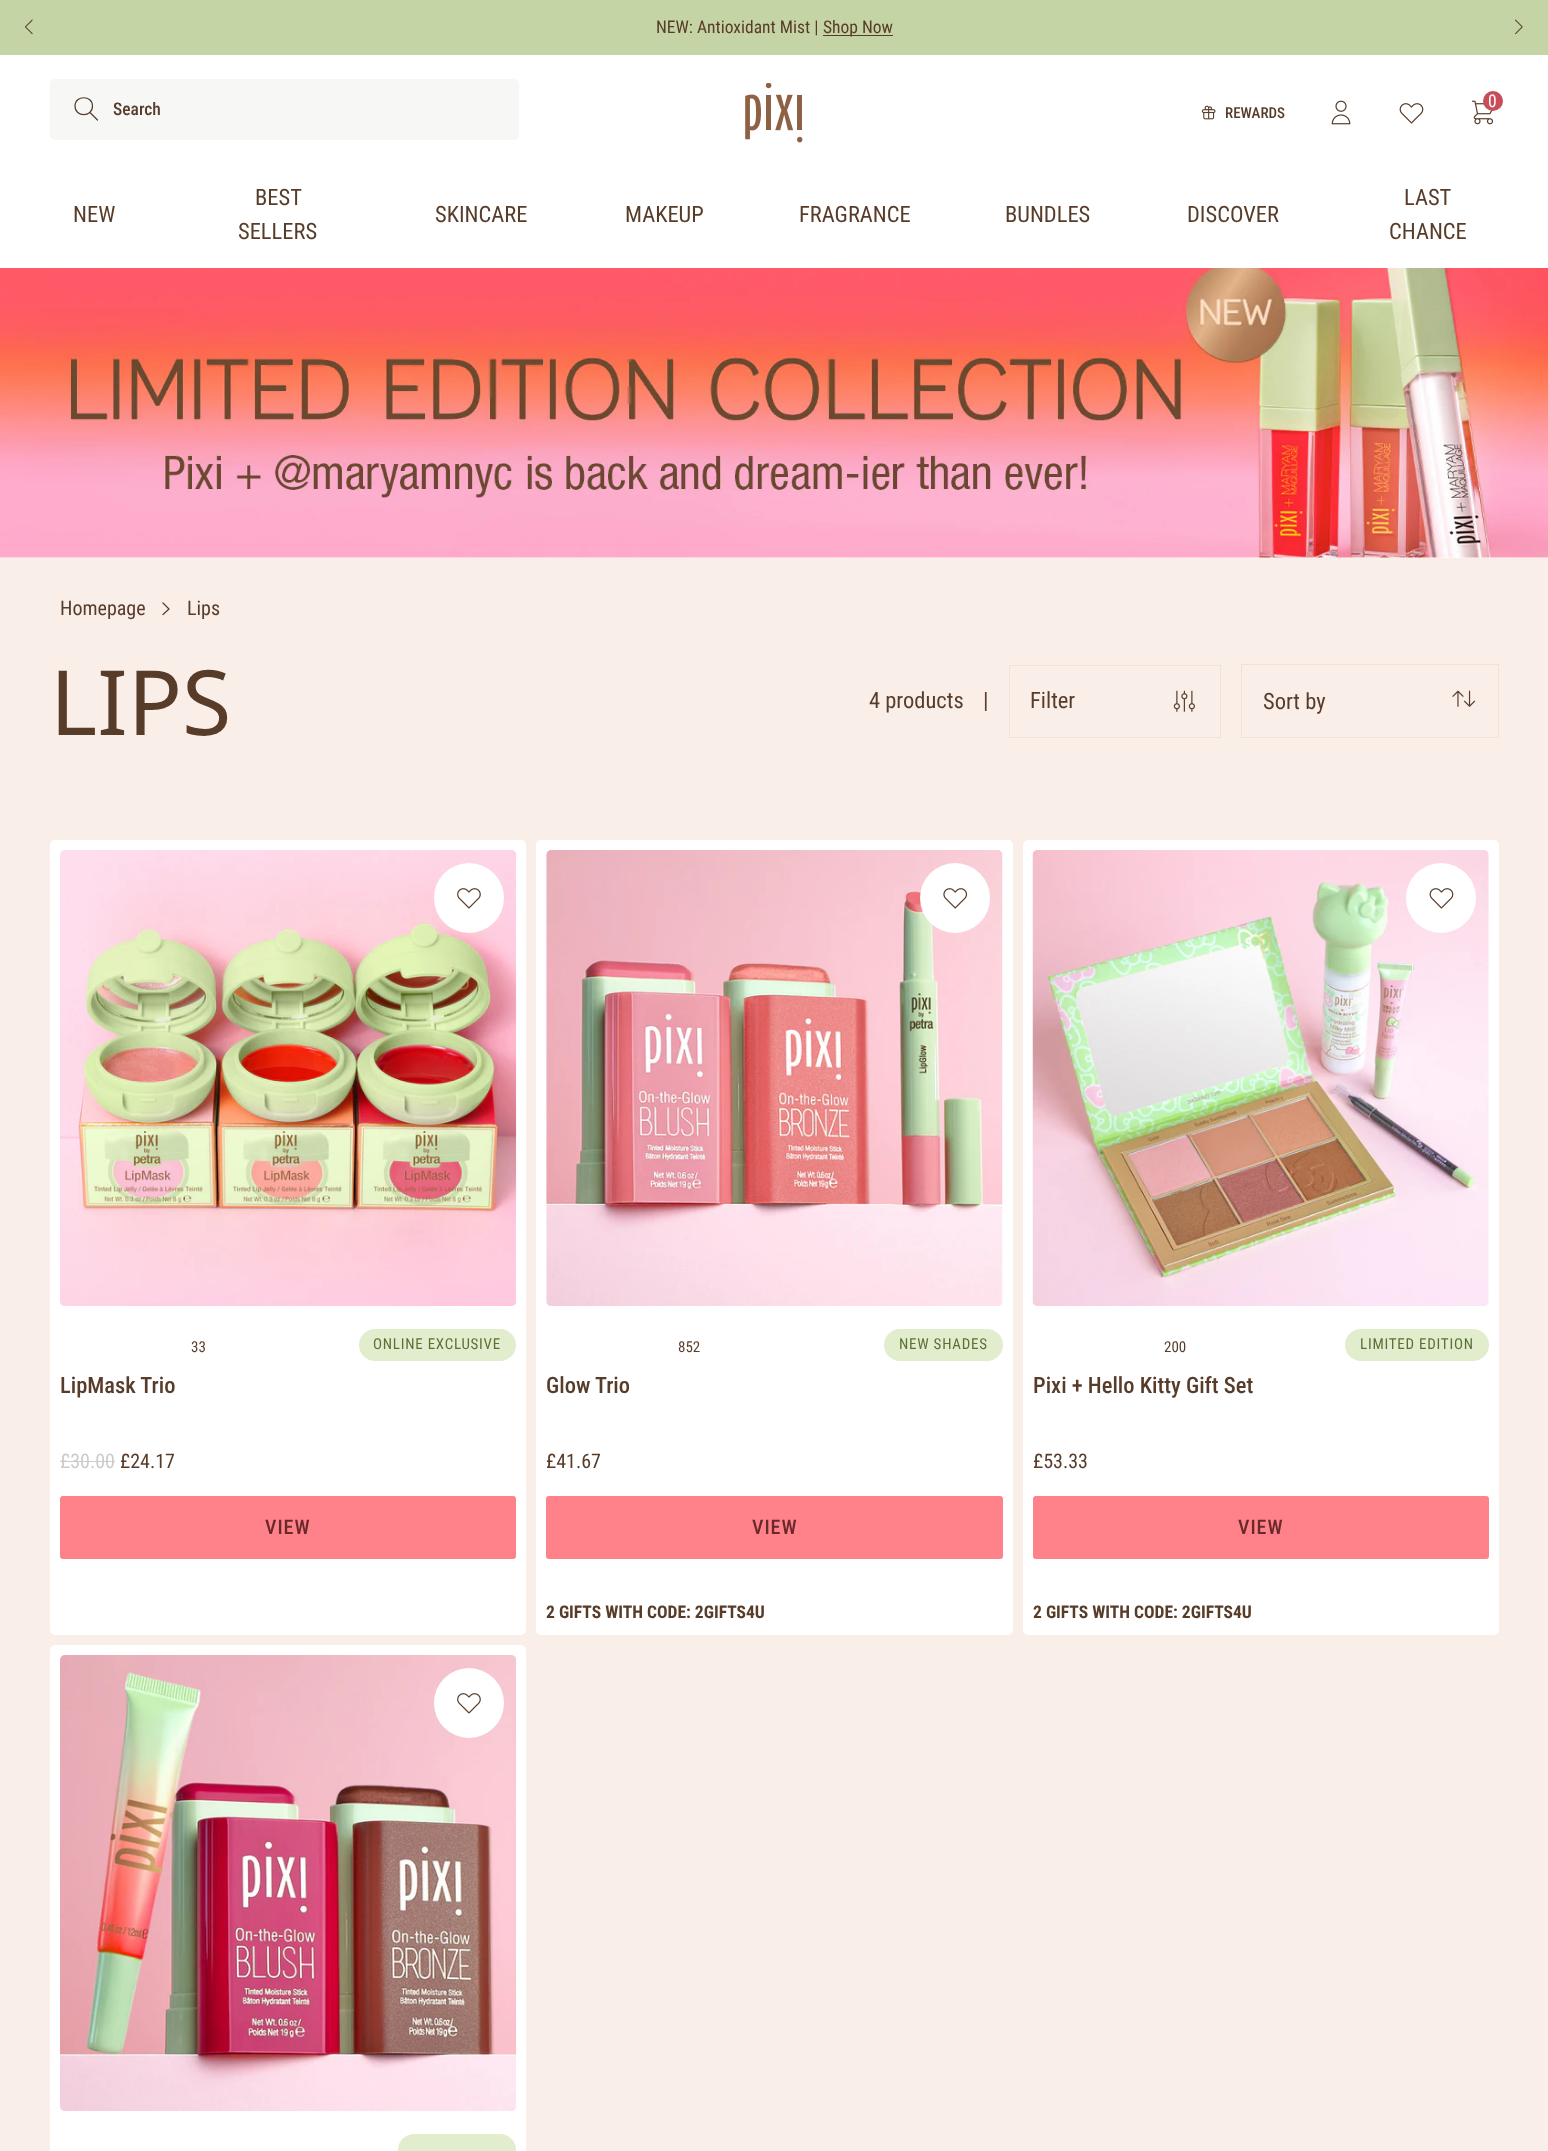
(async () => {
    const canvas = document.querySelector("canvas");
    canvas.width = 1548;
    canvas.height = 2151;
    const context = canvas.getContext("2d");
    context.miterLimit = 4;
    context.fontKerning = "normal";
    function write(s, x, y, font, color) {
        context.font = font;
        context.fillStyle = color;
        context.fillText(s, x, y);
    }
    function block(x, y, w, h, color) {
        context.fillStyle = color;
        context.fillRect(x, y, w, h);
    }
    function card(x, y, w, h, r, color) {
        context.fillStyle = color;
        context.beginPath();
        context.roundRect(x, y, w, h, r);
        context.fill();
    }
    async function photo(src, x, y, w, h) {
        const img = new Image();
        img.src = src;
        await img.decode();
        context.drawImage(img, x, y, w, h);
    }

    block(0, 0, 1548, 2151, "rgb(255, 255, 255)");
    block(0, 0, 1548, 55, "rgb(196, 212, 164)");
    await photo("media/1.png", 25, 19, 8, 16);
    write("NEW: Antioxidant Mist |", 656, 33, "17.5px Roboto Condensed", "rgb(88, 60, 42)");
    block(823, 35, 70, 1, "rgb(88, 60, 42)");
    write("Shop Now", 823, 33, "17.5px Roboto Condensed", "rgb(88, 60, 42)");
    await photo("media/2.png", 1515, 19, 8, 16);
    card(50, 79, 469, 61, 5, "rgb(247, 248, 246)");
    context.beginPath();
    context.moveTo(97.5, 120);
    context.lineTo(90, 112.5);
    context.moveTo(92.5, 106);
    context.bezierCurveTo(92.5, 117.5, 75, 117.5, 75, 106);
    context.bezierCurveTo(75, 95, 92.5, 95, 92.5, 106);
    context.closePath();
    context.strokeStyle = "rgb(88, 60, 42)";
    context.lineWidth = 1.2;
    context.lineCap = "round";
    context.lineJoin = "round";
    context.stroke();
    write("Search", 113, 115, "500 17.5px Roboto Condensed", "rgb(88, 60, 42)");
    await photo("media/3.png", 745, 83, 58, 60);
    await photo("media/4.png", 1201, 105, 15, 15);
    write("REWARDS", 1225, 118, "500 15px Roboto Condensed", "rgb(88, 60, 42)");
    await photo("media/5.png", 1331, 100, 20, 25);
    await photo("media/6.png", 1399, 103, 25, 21);
    await photo("media/7.png", 1471, 100, 23, 25);
    context.fillStyle = "rgb(199, 78, 88)";
    context.beginPath();
    context.arc(1493, 101, 10, 0, Math.PI * 2);
    context.fill();
    write("0", 1488, 107, "17.5px Roboto Condensed", "rgb(255, 255, 255)");
    write("NEW", 73, 222, "22.5px Roboto Condensed", "rgb(88, 60, 42)");
    write("BEST", 255, 205, "22.5px Roboto Condensed", "rgb(88, 60, 42)");
    write("SELLERS", 238, 239, "22.5px Roboto Condensed", "rgb(88, 60, 42)");
    write("SKINCARE", 435, 222, "22.5px Roboto Condensed", "rgb(88, 60, 42)");
    write("MAKEUP", 625, 222, "22.5px Roboto Condensed", "rgb(88, 60, 42)");
    write("FRAGRANCE", 799, 222, "22.5px Roboto Condensed", "rgb(88, 60, 42)");
    write("BUNDLES", 1005, 222, "22.5px Roboto Condensed", "rgb(88, 60, 42)");
    write("DISCOVER", 1187, 222, "22.5px Roboto Condensed", "rgb(88, 60, 42)");
    write("LAST", 1404, 205, "22.5px Roboto Condensed", "rgb(88, 60, 42)");
    write("CHANCE", 1389, 239, "22.5px Roboto Condensed", "rgb(88, 60, 42)");
    await photo("media/8.png", 0, 268, 1548, 290);
    block(0, 558, 1548, 1593, "rgb(250, 238, 232)");
    write("Homepage", 60, 615, "20px Roboto Condensed", "rgb(88, 60, 42)");
    context.beginPath();
    context.moveTo(163, 603);
    context.lineTo(169, 609);
    context.lineTo(163, 614.5);
    context.stroke();
    write("Lips", 187, 615, "20px Roboto Condensed", "rgb(88, 60, 42)");
    write("LIPS", 50, 735, "90px Noto Sans", "rgb(88, 60, 42)");
    write("4 products", 869, 708, "22.5px Roboto Condensed", "rgb(88, 60, 42)");
    write("|", 983, 708, "22.5px Roboto Condensed", "rgb(88, 60, 42)");
    context.strokeStyle = "rgb(243, 225, 215)";
    context.lineWidth = 1;
    context.lineJoin = "miter";
    context.strokeRect(1009.5, 665.5, 211, 72);
    write("Filter", 1030, 708, "22.5px Roboto Condensed", "rgb(88, 60, 42)");
    await photo("media/9.png", 1173, 690, 22, 22);
    context.strokeRect(1241.5, 664.5, 257, 73);
    write("Sort by", 1263, 709, "22.5px Roboto Condensed", "rgb(88, 60, 42)");
    await photo("media/10.png", 1452, 690, 24, 17);
    card(50, 840, 476, 795, 5, "rgb(255, 255, 255)");
    await photo("media/11.png", 60, 850, 457, 456);
    context.beginPath();
    context.arc(469, 898, 35, 0, Math.PI * 2);
    context.fill();
    await photo("media/12.png", 457, 888, 24, 21);
    write("33", 191, 1352, "15px Roboto Condensed", "rgb(88, 60, 42)");
    card(359, 1329, 157, 32, 16, "rgb(225, 237, 205)");
    context.letterSpacing = "0.75px";
    write("ONLINE EXCLUSIVE", 373, 1349, "15px Roboto Condensed", "rgb(92, 111, 53)");
    context.letterSpacing = "0px";
    write("LipMask Trio", 60, 1393, "500 22.5px Roboto Condensed", "rgb(88, 60, 42)");
    write("£30.00", 60, 1468, "20px Roboto Condensed", "rgb(204, 204, 204)");
    block(60, 1461, 55, 1, "rgb(204, 204, 204)");
    write("£24.17", 120, 1468, "20px Roboto Condensed", "rgb(88, 60, 42)");
    context.fillStyle = "rgb(255, 130, 138)";
    context.beginPath();
    context.roundRect(60.5, 1496.5, 455, 62, 2);
    context.fill();
    context.strokeStyle = "rgb(255, 130, 138)";
    context.stroke();
    context.letterSpacing = "1px";
    write("VIEW", 265, 1534, "500 20px Roboto Condensed", "rgb(106, 40, 44)");
    card(536, 840, 477, 795, 5, "rgb(255, 255, 255)");
    await photo("media/13.png", 546, 850, 457, 456);
    context.beginPath();
    context.arc(955, 898, 35, 0, Math.PI * 2);
    context.fill();
    await photo("media/14.png", 943, 888, 25, 21);
    context.letterSpacing = "0px";
    write("852", 678, 1352, "15px Roboto Condensed", "rgb(88, 60, 42)");
    card(884, 1329, 119, 32, 16, "rgb(225, 237, 205)");
    context.letterSpacing = "0.75px";
    write("NEW SHADES", 899, 1349, "15px Roboto Condensed", "rgb(92, 111, 53)");
    context.letterSpacing = "0px";
    write("Glow Trio", 546, 1393, "500 22.5px Roboto Condensed", "rgb(88, 60, 42)");
    write("£41.67", 546, 1468, "20px Roboto Condensed", "rgb(88, 60, 42)");
    context.fillStyle = "rgb(255, 130, 138)";
    context.beginPath();
    context.roundRect(546.5, 1496.5, 456, 62, 2);
    context.fill();
    context.stroke();
    context.letterSpacing = "1px";
    write("VIEW", 752, 1534, "500 20px Roboto Condensed", "rgb(106, 40, 44)");
    context.letterSpacing = "0px";
    write("2 GIFTS WITH CODE: 2GIFTS4U", 546, 1618, "bold 17.5px Roboto Condensed", "rgb(88, 60, 42)");
    card(1023, 840, 476, 795, 5, "rgb(255, 255, 255)");
    await photo("media/15.png", 1032, 850, 457, 456);
    context.beginPath();
    context.arc(1441, 898, 35, 0, Math.PI * 2);
    context.fill();
    await photo("media/6.png", 1429, 888, 25, 21);
    write("200", 1164, 1352, "15px Roboto Condensed", "rgb(88, 60, 42)");
    card(1345, 1329, 144, 32, 16, "rgb(225, 237, 205)");
    context.letterSpacing = "0.75px";
    write("LIMITED EDITION", 1360, 1349, "15px Roboto Condensed", "rgb(92, 111, 53)");
    context.letterSpacing = "0px";
    write("Pixi + Hello Kitty Gift Set", 1033, 1393, "500 22.5px Roboto Condensed", "rgb(88, 60, 42)");
    write("£53.33", 1033, 1468, "20px Roboto Condensed", "rgb(88, 60, 42)");
    context.fillStyle = "rgb(255, 130, 138)";
    context.beginPath();
    context.roundRect(1033.5, 1496.5, 455, 62, 2);
    context.fill();
    context.stroke();
    context.letterSpacing = "1px";
    write("VIEW", 1238, 1534, "500 20px Roboto Condensed", "rgb(106, 40, 44)");
    context.letterSpacing = "0px";
    write("2 GIFTS WITH CODE: 2GIFTS4U", 1033, 1618, "bold 17.5px Roboto Condensed", "rgb(88, 60, 42)");
    card(50, 1645, 476, 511, 5, "rgb(255, 255, 255)");
    await photo("media/16.png", 60, 1655, 457, 456);
    context.beginPath();
    context.arc(469, 1703, 35, 0, Math.PI * 2);
    context.fill();
    await photo("media/12.png", 457, 1693, 24, 21);
    card(398, 2134, 118, 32, 16, "rgb(225, 237, 205)");
})();
